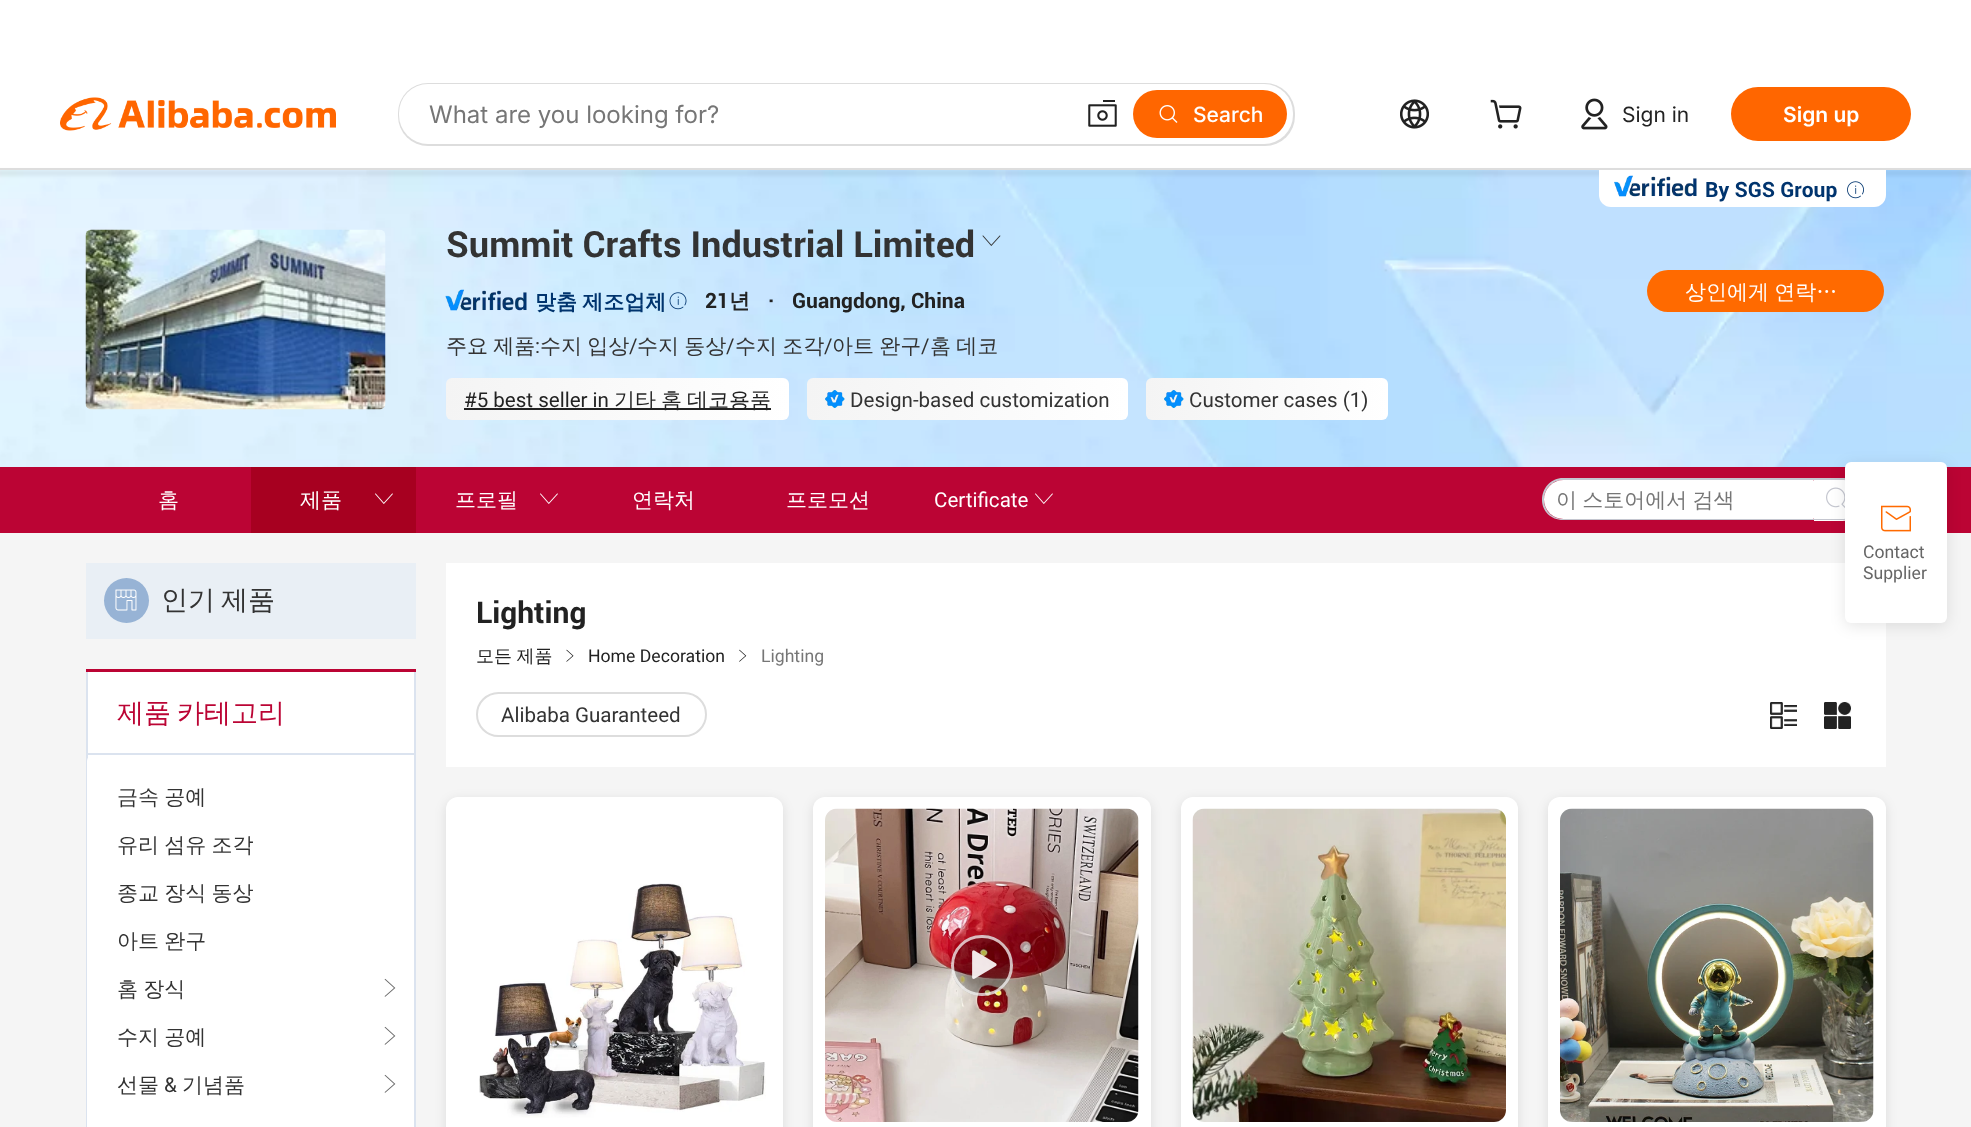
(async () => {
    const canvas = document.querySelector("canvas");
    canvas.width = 1971;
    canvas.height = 1127;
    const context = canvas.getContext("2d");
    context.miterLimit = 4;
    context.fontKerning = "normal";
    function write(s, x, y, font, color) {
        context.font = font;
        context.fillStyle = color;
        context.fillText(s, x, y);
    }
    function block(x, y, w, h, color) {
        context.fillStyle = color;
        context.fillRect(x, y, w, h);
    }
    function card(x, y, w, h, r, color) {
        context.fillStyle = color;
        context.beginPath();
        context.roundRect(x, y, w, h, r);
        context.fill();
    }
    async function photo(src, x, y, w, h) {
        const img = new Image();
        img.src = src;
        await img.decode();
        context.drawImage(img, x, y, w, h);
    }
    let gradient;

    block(0, 0, 1971, 1127, "rgb(255, 255, 255)");
    await photo("media/7.png", 0, 170, 1971, 297);
    context.fillStyle = "rgba(0, 0, 0, 0.05)";
    context.filter = "blur(1.5px)";
    context.beginPath();
    context.rect(-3, 170, 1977, 6);
    context.fill();
    context.filter = "none";
    block(0, 168, 1971, 2, "rgb(221, 221, 221)");
    await photo("media/1.png", 60, 97, 276, 34);
    card(398, 83, 897, 63, 30, "rgb(221, 221, 221)");
    card(399, 84, 894, 60, 29, "rgb(255, 255, 255)");
    write("What are you looking for?", 429, 123, "24px Inter", "rgb(118, 118, 118)");
    await photo("media/2.png", 1088, 100, 29, 27);
    card(1133, 90, 154, 48, 24, "rgb(255, 102, 0)");
    await photo("media/3.png", 1159, 105, 19, 18);
    write("Search", 1193, 122, "500 21px Inter", "rgb(255, 255, 255)");
    await photo("media/4.png", 1400, 99, 29, 30);
    await photo("media/5.png", 1490, 99, 32, 30);
    await photo("media/6.png", 1581, 98, 27, 32);
    write("Sign in", 1622, 122, "21px Inter", "rgb(34, 34, 34)");
    card(1731, 87, 180, 54, 27, "rgb(255, 102, 0)");
    write("Sign up", 1783, 122, "600 21px Inter", "rgb(255, 255, 255)");
    context.beginPath();
    context.roundRect(1599, 170, 287, 37, [0, 0, 12, 12]);
    context.fill();
    await photo("media/8.png", 1614, 175, 83, 22);
    write("By SGS Group", 1705, 197, "bold 21px Roboto", "rgb(0, 52, 110)");
    await photo("media/9.png", 1847, 181, 17, 18);
    await photo("media/10.png", 85, 229, 301, 181);
    write("Summit Crafts Industrial Limited", 446, 257, "bold 36px Roboto", "rgb(51, 51, 51)");
    await photo("media/11.png", 982, 235, 19, 11);
    await photo("media/12.png", 445, 289, 82, 22);
    context.wordSpacing = "-1px";
    write("맞춤 제조업체", 535, 309, "bold 21px WenQuanYi Zen Hei", "rgb(0, 52, 110)");
    await photo("media/13.png", 669, 292, 18, 18);
    context.wordSpacing = "0px";
    write("21", 705, 308, "bold 21px Roboto", "rgb(34, 34, 34)");
    write("년", 729, 308, "bold 21px WenQuanYi Zen Hei", "rgb(34, 34, 34)");
    write("·", 768, 308, "bold 21px Roboto", "rgb(34, 34, 34)");
    write("Guangdong, China", 792, 308, "bold 21px Roboto", "rgb(34, 34, 34)");
    context.wordSpacing = "-1px";
    write("주요 제품", 446, 353, "500 21px WenQuanYi Zen Hei", "rgb(51, 51, 51)");
    context.wordSpacing = "0px";
    write(":", 535, 353, "21px Roboto", "rgb(51, 51, 51)");
    context.wordSpacing = "-1px";
    write("수지 입상", 540, 353, "500 21px WenQuanYi Zen Hei", "rgb(51, 51, 51)");
    context.wordSpacing = "0px";
    write("/", 629, 353, "21px Roboto", "rgb(51, 51, 51)");
    context.wordSpacing = "-1px";
    write("수지 동상", 637, 353, "500 21px WenQuanYi Zen Hei", "rgb(51, 51, 51)");
    context.wordSpacing = "0px";
    write("/", 726, 353, "21px Roboto", "rgb(51, 51, 51)");
    context.wordSpacing = "-1px";
    write("수지 조각", 735, 353, "500 21px WenQuanYi Zen Hei", "rgb(51, 51, 51)");
    context.wordSpacing = "0px";
    write("/", 824, 353, "21px Roboto", "rgb(51, 51, 51)");
    context.wordSpacing = "-1px";
    write("아트 완구", 832, 353, "500 21px WenQuanYi Zen Hei", "rgb(51, 51, 51)");
    context.wordSpacing = "0px";
    write("/", 921, 353, "21px Roboto", "rgb(51, 51, 51)");
    context.wordSpacing = "-1px";
    write("홈 데코", 930, 353, "500 21px WenQuanYi Zen Hei", "rgb(51, 51, 51)");
    gradient = context.createLinearGradient(789, 399, 446, 399);
    gradient.addColorStop(0, "rgb(255, 255, 255)");
    gradient.addColorStop(1, "rgb(244, 244, 244)");
    context.fillStyle = gradient;
    context.beginPath();
    context.roundRect(446, 378, 343, 42, 6);
    context.fill();
    context.wordSpacing = "0px";
    write("#5 best seller in", 464, 407, "21px Roboto", "rgb(34, 34, 34)");
    block(464, 408, 307, 2, "rgb(34, 34, 34)");
    write("기타", 614, 407, "500 21px WenQuanYi Zen Hei", "rgb(34, 34, 34)");
    write("홈", 661, 407, "500 21px WenQuanYi Zen Hei", "rgb(34, 34, 34)");
    write("데코용품", 687, 407, "500 21px WenQuanYi Zen Hei", "rgb(34, 34, 34)");
    gradient = context.createLinearGradient(1128, 399, 807, 399);
    gradient.addColorStop(0, "rgb(255, 255, 255)");
    gradient.addColorStop(1, "rgb(244, 244, 244)");
    context.fillStyle = gradient;
    context.beginPath();
    context.roundRect(807, 378, 321, 42, 6);
    context.fill();
    await photo("media/14.png", 825, 390, 20, 18);
    write("Design-based customization", 850, 407, "21px Roboto", "rgb(51, 51, 51)");
    gradient = context.createLinearGradient(1388, 399, 1146, 399);
    gradient.addColorStop(0, "rgb(255, 255, 255)");
    gradient.addColorStop(1, "rgb(244, 244, 244)");
    context.fillStyle = gradient;
    context.beginPath();
    context.roundRect(1146, 378, 242, 42, 6);
    context.fill();
    await photo("media/15.png", 1164, 390, 20, 18);
    write("Customer cases (1)", 1189, 407, "21px Roboto", "rgb(51, 51, 51)");
    card(1647, 270, 237, 42, 21, "rgb(255, 106, 0)");
    context.wordSpacing = "-1px";
    write("상인에게 연락…", 1685, 299, "500 21px WenQuanYi Zen Hei", "rgb(255, 255, 255)");
    block(0, 467, 1971, 66, "rgb(187, 4, 52)");
    context.wordSpacing = "0px";
    write("홈", 158, 507, "500 21px WenQuanYi Zen Hei", "rgb(255, 255, 255)");
    block(251, 467, 165, 66, "rgb(167, 0, 32)");
    write("제품", 300, 507, "500 21px WenQuanYi Zen Hei", "rgb(255, 255, 255)");
    await photo("media/16.png", 375, 493, 18, 11);
    write("프로필", 455, 507, "500 21px WenQuanYi Zen Hei", "rgb(255, 255, 255)");
    await photo("media/17.png", 540, 493, 18, 11);
    write("연락처", 632, 507, "500 21px WenQuanYi Zen Hei", "rgb(255, 255, 255)");
    write("프로모션", 786, 507, "500 21px WenQuanYi Zen Hei", "rgb(255, 255, 255)");
    write("Certificate", 934, 507, "21px Roboto", "rgb(255, 255, 255)");
    await photo("media/17.png", 1035, 493, 18, 11);
    context.fillStyle = "rgb(196, 198, 207)";
    context.beginPath();
    context.moveTo(1563, 478);
    context.lineTo(1814, 478);
    context.lineTo(1814, 520);
    context.lineTo(1563, 520);
    context.bezierCurveTo(1551, 520, 1542, 511, 1542, 500);
    context.bezierCurveTo(1542, 488, 1551, 478, 1563, 478);
    context.closePath();
    context.moveTo(1563, 480);
    context.lineTo(1814, 480);
    context.lineTo(1814, 519);
    context.lineTo(1563, 519);
    context.bezierCurveTo(1552, 519, 1544, 510, 1544, 500);
    context.bezierCurveTo(1544, 489, 1552, 480, 1563, 480);
    context.closePath();
    context.fill("evenodd");
    context.fillStyle = "rgb(255, 255, 255)";
    context.beginPath();
    context.roundRect(1544, 480, 270, 39, [19.5, 1, 1, 19.5]);
    context.fill();
    context.wordSpacing = "-1px";
    write("이 스토어에서 검색", 1556, 507, "500 21px WenQuanYi Zen Hei", "rgb(118, 118, 118)");
    context.fillStyle = "rgb(255, 255, 255)";
    context.beginPath();
    context.roundRect(1814, 479, 49, 42, [0, 21, 21, 0]);
    context.fill();
    context.fillStyle = "rgb(196, 198, 207)";
    context.beginPath();
    context.moveTo(1814, 478);
    context.lineTo(1842, 478);
    context.bezierCurveTo(1854, 478, 1863, 488, 1863, 500);
    context.bezierCurveTo(1863, 511, 1854, 520, 1842, 520);
    context.lineTo(1814, 520);
    context.closePath();
    context.moveTo(1814, 480);
    context.lineTo(1842, 480);
    context.bezierCurveTo(1853, 480, 1862, 489, 1862, 500);
    context.bezierCurveTo(1862, 510, 1853, 519, 1842, 519);
    context.lineTo(1814, 519);
    context.closePath();
    context.fill("evenodd");
    await photo("media/18.png", 1826, 487, 19, 21);
    block(0, 533, 1971, 594, "rgb(245, 245, 245)");
    block(86, 563, 330, 76, "rgb(233, 239, 245)");
    context.fillStyle = "rgb(151, 179, 213)";
    context.beginPath();
    context.arc(126.5, 600.5, 22.5, 0, Math.PI * 2);
    context.fill();
    await photo("media/19.png", 115, 589, 22, 22);
    context.wordSpacing = "-2px";
    write("인기 제품", 161, 609, "500 27px WenQuanYi Zen Hei", "rgb(51, 51, 51)");
    block(88, 672, 326, 89, "rgb(255, 255, 255)");
    block(86, 669, 330, 3, "rgb(187, 4, 52)");
    block(414, 672, 2, 455, "rgb(219, 227, 239)");
    block(86, 672, 2, 455, "rgb(219, 227, 239)");
    block(87, 753, 327, 2, "rgb(219, 227, 239)");
    write("제품 카테고리", 117, 722, "500 27px WenQuanYi Zen Hei", "rgb(187, 4, 52)");
    card(87, 755, 327, 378, 6, "rgb(255, 255, 255)");
    context.wordSpacing = "-1px";
    write("금속 공예", 117, 804, "500 21px WenQuanYi Zen Hei", "rgb(51, 51, 51)");
    write("유리 섬유 조각", 117, 852, "500 21px WenQuanYi Zen Hei", "rgb(51, 51, 51)");
    write("종교 장식 동상", 117, 900, "500 21px WenQuanYi Zen Hei", "rgb(51, 51, 51)");
    write("아트 완구", 117, 948, "500 21px WenQuanYi Zen Hei", "rgb(51, 51, 51)");
    write("홈 장식", 117, 996, "500 21px WenQuanYi Zen Hei", "rgb(51, 51, 51)");
    await photo("media/20.png", 384, 978, 12, 19);
    write("수지 공예", 117, 1044, "500 21px WenQuanYi Zen Hei", "rgb(51, 51, 51)");
    await photo("media/20.png", 384, 1026, 12, 19);
    context.wordSpacing = "0px";
    write("선물", 117, 1092, "500 21px WenQuanYi Zen Hei", "rgb(51, 51, 51)");
    write("&", 164, 1092, "21px Roboto", "rgb(51, 51, 51)");
    write("기념품", 182, 1092, "500 21px WenQuanYi Zen Hei", "rgb(51, 51, 51)");
    await photo("media/20.png", 384, 1074, 12, 19);
    block(446, 563, 1440, 204, "rgb(255, 255, 255)");
    write("Lighting", 476, 623, "bold 30px Roboto", "rgb(34, 34, 34)");
    context.wordSpacing = "-1px";
    write("모든 제품", 476, 662, "500 18px WenQuanYi Zen Hei", "rgb(34, 34, 34)");
    await photo("media/21.png", 566, 649, 8, 13);
    context.wordSpacing = "0px";
    write("Home Decoration", 588, 662, "18px Roboto", "rgb(34, 34, 34)");
    await photo("media/22.png", 739, 649, 8, 13);
    write("Lighting", 761, 662, "18px Roboto", "rgb(118, 118, 118)");
    context.beginPath();
    context.roundRect(477, 693, 229, 43, 21.5);
    context.strokeStyle = "rgb(221, 221, 221)";
    context.lineWidth = 2;
    context.stroke();
    write("Alibaba Guaranteed", 501, 722, "21px Roboto", "rgb(51, 51, 51)");
    await photo("media/23.png", 1770, 702, 27, 27);
    await photo("media/24.png", 1824, 701, 28, 28);
    context.fillStyle = "rgba(0, 0, 0, 0.1)";
    context.filter = "blur(6px)";
    context.beginPath();
    context.roundRect(446, 800, 337, 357, 12);
    context.fill();
    context.filter = "none";
    card(446, 797, 337, 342, 12, "rgb(255, 255, 255)");
    await photo("media/25.png", 479, 883, 287, 235);
    context.fillStyle = "rgba(0, 0, 0, 0.1)";
    context.filter = "blur(6px)";
    context.beginPath();
    context.roundRect(813, 800, 338, 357, 12);
    context.fill();
    context.filter = "none";
    card(813, 797, 338, 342, 12, "rgb(255, 255, 255)");
    await photo("media/26.png", 825, 808, 314, 314);
    card(951, 935, 62, 61, 30.5, "rgba(0, 0, 0, 0.27)");
    context.beginPath();
    context.roundRect(952.5, 936.5, 59, 58, 29);
    context.strokeStyle = "rgba(255, 255, 255, 0.72)";
    context.lineWidth = 3;
    context.stroke();
    await photo("media/27.png", 972, 950, 25, 29);
    context.fillStyle = "rgba(0, 0, 0, 0.1)";
    context.filter = "blur(6px)";
    context.beginPath();
    context.roundRect(1181, 800, 337, 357, 12);
    context.fill();
    context.filter = "none";
    card(1181, 797, 337, 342, 12, "rgb(255, 255, 255)");
    await photo("media/28.png", 1192, 808, 314, 314);
    context.fillStyle = "rgba(0, 0, 0, 0.1)";
    context.filter = "blur(6px)";
    context.beginPath();
    context.roundRect(1548, 800, 338, 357, 12);
    context.fill();
    context.filter = "none";
    card(1548, 797, 338, 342, 12, "rgb(255, 255, 255)");
    await photo("media/29.png", 1560, 808, 314, 314);
    context.fillStyle = "rgba(0, 0, 0, 0.1)";
    context.filter = "blur(7.5px)";
    context.beginPath();
    context.roundRect(1845, 465, 102, 161, 6);
    context.fill();
    context.filter = "none";
    card(1845, 462, 102, 161, 6, "rgb(255, 255, 255)");
    await photo("media/30.png", 1881, 505, 30, 27);
    write("Contact", 1863, 558, "18px Roboto", "rgb(102, 102, 102)");
    write("Supplier", 1863, 579, "18px Roboto", "rgb(102, 102, 102)");
})();
